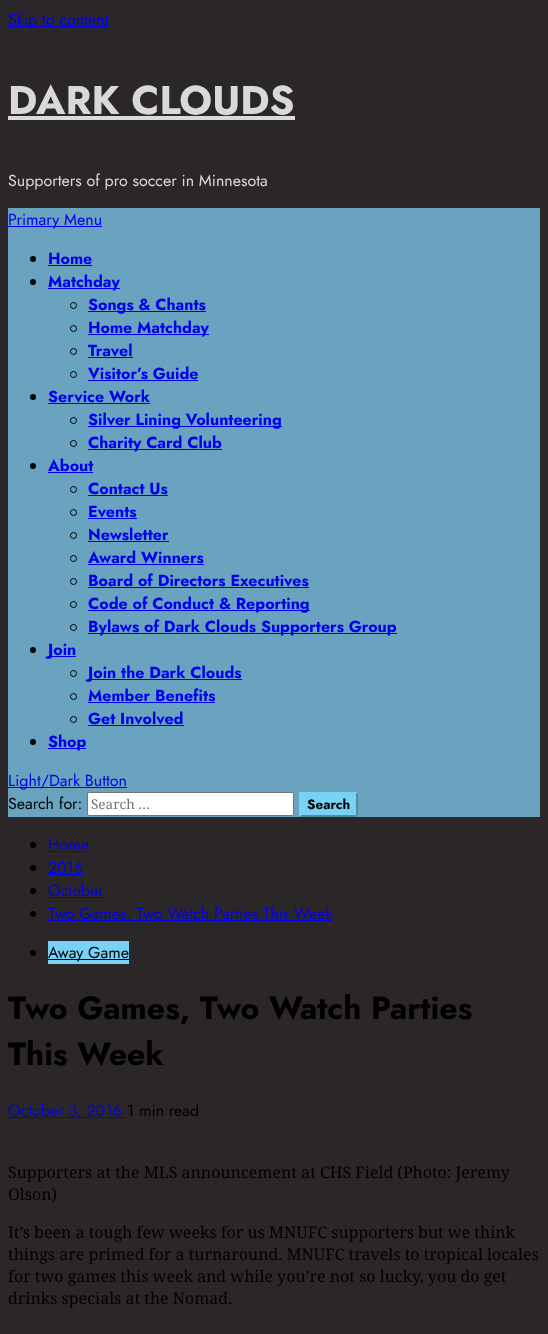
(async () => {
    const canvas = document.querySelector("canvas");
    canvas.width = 548;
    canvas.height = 1334;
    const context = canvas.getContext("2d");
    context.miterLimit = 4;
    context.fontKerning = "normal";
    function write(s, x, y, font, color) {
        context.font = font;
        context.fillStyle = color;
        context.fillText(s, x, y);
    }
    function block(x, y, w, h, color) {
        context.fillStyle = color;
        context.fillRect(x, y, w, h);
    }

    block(0, 0, 548, 1334, "rgb(43, 39, 40)");
    block(8, 26, 100, 1, "rgb(0, 0, 238)");
    write("Skip to content", 8, 25, "16px Jost", "rgb(0, 0, 238)");
    write("DARK CLOUDS", 8, 114, "bold 40px Jost", "rgb(216, 218, 217)");
    block(8, 116, 287, 4, "rgb(216, 218, 217)");
    write("Supporters of pro soccer in Minnesota", 8, 186, "16px Jost", "rgb(216, 218, 217)");
    block(8, 208, 532, 609, "rgb(105, 163, 191)");
    block(8, 226, 94, 1, "rgb(0, 0, 238)");
    write("Primary Menu", 8, 225, "16px Jost", "rgb(0, 0, 238)");
    context.fillStyle = "rgb(0, 0, 0)";
    context.beginPath();
    context.arc(33, 259, 3, 0, Math.PI * 2);
    context.fill();
    write("Home", 48, 264, "bold 16px Jost", "rgb(0, 0, 238)");
    block(48, 265, 44, 1, "rgb(0, 0, 238)");
    context.fillStyle = "rgb(0, 0, 0)";
    context.beginPath();
    context.arc(33, 282, 3, 0, Math.PI * 2);
    context.fill();
    block(48, 288, 72, 1, "rgb(0, 0, 238)");
    write("Matchday", 48, 287, "bold 16px Jost", "rgb(0, 0, 238)");
    context.beginPath();
    context.arc(73.5, 305.5, 3, 0, Math.PI * 2);
    context.strokeStyle = "rgb(0, 0, 0)";
    context.stroke();
    block(88, 311, 118, 1, "rgb(0, 0, 238)");
    write("Songs & Chants", 88, 310, "bold 16px Jost", "rgb(0, 0, 238)");
    context.beginPath();
    context.arc(73.5, 328.5, 3, 0, Math.PI * 2);
    context.stroke();
    block(88, 334, 121, 1, "rgb(0, 0, 238)");
    write("Home Matchday", 88, 333, "bold 16px Jost", "rgb(0, 0, 238)");
    context.beginPath();
    context.arc(73.5, 351.5, 3, 0, Math.PI * 2);
    context.stroke();
    write("Travel", 88, 356, "bold 16px Jost", "rgb(0, 0, 238)");
    block(88, 357, 45, 1, "rgb(0, 0, 238)");
    context.beginPath();
    context.arc(73.5, 374.5, 3, 0, Math.PI * 2);
    context.stroke();
    write("Visitor’s Guide", 88, 379, "bold 16px Jost", "rgb(0, 0, 238)");
    block(88, 380, 110, 1, "rgb(0, 0, 238)");
    context.fillStyle = "rgb(0, 0, 0)";
    context.beginPath();
    context.arc(33, 397, 3, 0, Math.PI * 2);
    context.fill();
    write("Service Work", 48, 402, "bold 16px Jost", "rgb(0, 0, 238)");
    block(48, 403, 102, 1, "rgb(0, 0, 238)");
    context.beginPath();
    context.arc(73.5, 420.5, 3, 0, Math.PI * 2);
    context.stroke();
    block(88, 426, 194, 1, "rgb(0, 0, 238)");
    write("Silver Lining Volunteering", 88, 425, "bold 16px Jost", "rgb(0, 0, 238)");
    context.beginPath();
    context.arc(73.5, 443.5, 3, 0, Math.PI * 2);
    context.stroke();
    block(88, 449, 134, 1, "rgb(0, 0, 238)");
    write("Charity Card Club", 88, 448, "bold 16px Jost", "rgb(0, 0, 238)");
    context.fillStyle = "rgb(0, 0, 0)";
    context.beginPath();
    context.arc(33, 466, 3, 0, Math.PI * 2);
    context.fill();
    write("About", 48, 471, "bold 16px Jost", "rgb(0, 0, 238)");
    block(48, 472, 45, 1, "rgb(0, 0, 238)");
    context.beginPath();
    context.arc(73.5, 489.5, 3, 0, Math.PI * 2);
    context.stroke();
    write("Contact Us", 88, 494, "bold 16px Jost", "rgb(0, 0, 238)");
    block(88, 495, 80, 1, "rgb(0, 0, 238)");
    context.beginPath();
    context.arc(73.5, 512.5, 3, 0, Math.PI * 2);
    context.stroke();
    write("Events", 88, 517, "bold 16px Jost", "rgb(0, 0, 238)");
    block(88, 518, 49, 1, "rgb(0, 0, 238)");
    context.beginPath();
    context.arc(73.5, 535.5, 3, 0, Math.PI * 2);
    context.stroke();
    write("Newsletter", 88, 540, "bold 16px Jost", "rgb(0, 0, 238)");
    block(88, 541, 81, 1, "rgb(0, 0, 238)");
    context.beginPath();
    context.arc(73.5, 558.5, 3, 0, Math.PI * 2);
    context.stroke();
    write("Award Winners", 88, 563, "bold 16px Jost", "rgb(0, 0, 238)");
    block(88, 564, 116, 1, "rgb(0, 0, 238)");
    context.beginPath();
    context.arc(73.5, 581.5, 3, 0, Math.PI * 2);
    context.stroke();
    write("Board of Directors Executives", 88, 586, "bold 16px Jost", "rgb(0, 0, 238)");
    block(88, 587, 221, 1, "rgb(0, 0, 238)");
    context.beginPath();
    context.arc(73.5, 604.5, 3, 0, Math.PI * 2);
    context.stroke();
    block(88, 610, 222, 1, "rgb(0, 0, 238)");
    write("Code of Conduct & Reporting", 88, 609, "bold 16px Jost", "rgb(0, 0, 238)");
    context.beginPath();
    context.arc(73.5, 627.5, 3, 0, Math.PI * 2);
    context.stroke();
    block(88, 633, 309, 1, "rgb(0, 0, 238)");
    write("Bylaws of Dark Clouds Supporters Group", 88, 632, "bold 16px Jost", "rgb(0, 0, 238)");
    context.fillStyle = "rgb(0, 0, 0)";
    context.beginPath();
    context.arc(33, 650, 3, 0, Math.PI * 2);
    context.fill();
    block(48, 656, 28, 1, "rgb(0, 0, 238)");
    write("Join", 48, 655, "bold 16px Jost", "rgb(0, 0, 238)");
    context.beginPath();
    context.arc(73.5, 673.5, 3, 0, Math.PI * 2);
    context.stroke();
    block(88, 679, 154, 1, "rgb(0, 0, 238)");
    write("Join the Dark Clouds", 88, 678, "bold 16px Jost", "rgb(0, 0, 238)");
    context.beginPath();
    context.arc(73.5, 696.5, 3, 0, Math.PI * 2);
    context.stroke();
    write("Member Benefits", 88, 701, "bold 16px Jost", "rgb(0, 0, 238)");
    block(88, 702, 127, 1, "rgb(0, 0, 238)");
    context.beginPath();
    context.arc(73.5, 719.5, 3, 0, Math.PI * 2);
    context.stroke();
    write("Get Involved", 88, 724, "bold 16px Jost", "rgb(0, 0, 238)");
    block(88, 725, 96, 1, "rgb(0, 0, 238)");
    context.fillStyle = "rgb(0, 0, 0)";
    context.beginPath();
    context.arc(33, 742, 3, 0, Math.PI * 2);
    context.fill();
    block(48, 748, 38, 1, "rgb(0, 0, 238)");
    write("Shop", 48, 747, "bold 16px Jost", "rgb(0, 0, 238)");
    block(8, 787, 119, 1, "rgb(0, 0, 238)");
    write("Light/Dark Button", 8, 786, "16px Jost", "rgb(0, 0, 238)");
    write("Search for:", 8, 809, "16px Jost", "rgb(0, 0, 0)");
    context.fillStyle = "rgb(255, 255, 255)";
    context.beginPath();
    context.roundRect(87.5, 792.5, 206, 23, 1.5);
    context.fill();
    context.strokeStyle = "rgb(118, 118, 118)";
    context.stroke();
    write("Search …", 91, 809, "13.5px Noto Serif", "rgb(117, 117, 117)");
    block(299, 792, 59, 25, "rgb(120, 210, 245)");
    context.fillStyle = "rgb(80, 140, 163)";
    context.beginPath();
    context.moveTo(358, 792);
    context.lineTo(358, 817);
    context.lineTo(356, 815);
    context.lineTo(356, 794);
    context.closePath();
    context.fill();
    context.beginPath();
    context.moveTo(358, 817);
    context.lineTo(299, 817);
    context.lineTo(301, 815);
    context.lineTo(356, 815);
    context.closePath();
    context.fill();
    context.fillStyle = "rgb(120, 210, 245)";
    context.beginPath();
    context.moveTo(299, 817);
    context.lineTo(299, 792);
    context.lineTo(301, 794);
    context.lineTo(301, 815);
    context.closePath();
    context.fill();
    write("Search", 307, 809, "bold 13.5px Jost", "rgb(0, 0, 0)");
    context.beginPath();
    context.arc(33, 845, 3, 0, Math.PI * 2);
    context.fill();
    write("Home", 48, 850, "16px Jost", "rgb(0, 0, 238)");
    block(48, 851, 41, 1, "rgb(0, 0, 238)");
    context.fillStyle = "rgb(0, 0, 0)";
    context.beginPath();
    context.arc(33, 868, 3, 0, Math.PI * 2);
    context.fill();
    write("2016", 48, 873, "16px Jost", "rgb(0, 0, 238)");
    block(48, 874, 35, 1, "rgb(0, 0, 238)");
    context.fillStyle = "rgb(0, 0, 0)";
    context.beginPath();
    context.arc(33, 891, 3, 0, Math.PI * 2);
    context.fill();
    write("October", 48, 896, "16px Jost", "rgb(0, 0, 238)");
    block(48, 897, 56, 1, "rgb(0, 0, 238)");
    context.fillStyle = "rgb(0, 0, 0)";
    context.beginPath();
    context.arc(33, 914, 3, 0, Math.PI * 2);
    context.fill();
    block(48, 920, 284, 1, "rgb(0, 0, 238)");
    write("Two Games, Two Watch Parties This Week", 48, 919, "16px Jost", "rgb(0, 0, 238)");
    context.fillStyle = "rgb(0, 0, 0)";
    context.beginPath();
    context.arc(33, 953, 3, 0, Math.PI * 2);
    context.fill();
    block(48, 941, 81, 23, "rgb(120, 210, 245)");
    block(48, 959, 81, 1, "rgb(0, 0, 0)");
    write("Away Game", 48, 958, "16px Jost", "rgb(0, 0, 0)");
    write("Two Games, Two Watch Parties", 8, 1019, "bold 32px Jost", "rgb(0, 0, 0)");
    write("This Week", 8, 1065, "bold 32px Jost", "rgb(0, 0, 0)");
    block(8, 1117, 119, 1, "rgb(0, 0, 238)");
    write("October 3, 2016", 8, 1116, "16px Jost", "rgb(0, 0, 238)");
    write("1 min read", 127, 1116, "16px Jost", "rgb(0, 0, 0)");
    write("Supporters at the MLS announcement at CHS Field (Photo: Jeremy", 8, 1178, "16px Noto Serif", "rgb(0, 0, 0)");
    write("Olson)", 8, 1200, "16px Noto Serif", "rgb(0, 0, 0)");
    write("It’s been a tough few weeks for us MNUFC supporters but we think", 8, 1238, "16px Noto Serif", "rgb(0, 0, 0)");
    write("things are primed for a turnaround. MNUFC travels to tropical locales", 8, 1260, "16px Noto Serif", "rgb(0, 0, 0)");
    write("for two games this week and while you’re not so lucky, you do get", 8, 1282, "16px Noto Serif", "rgb(0, 0, 0)");
    write("drinks specials at the Nomad.", 8, 1304, "16px Noto Serif", "rgb(0, 0, 0)");
})();
